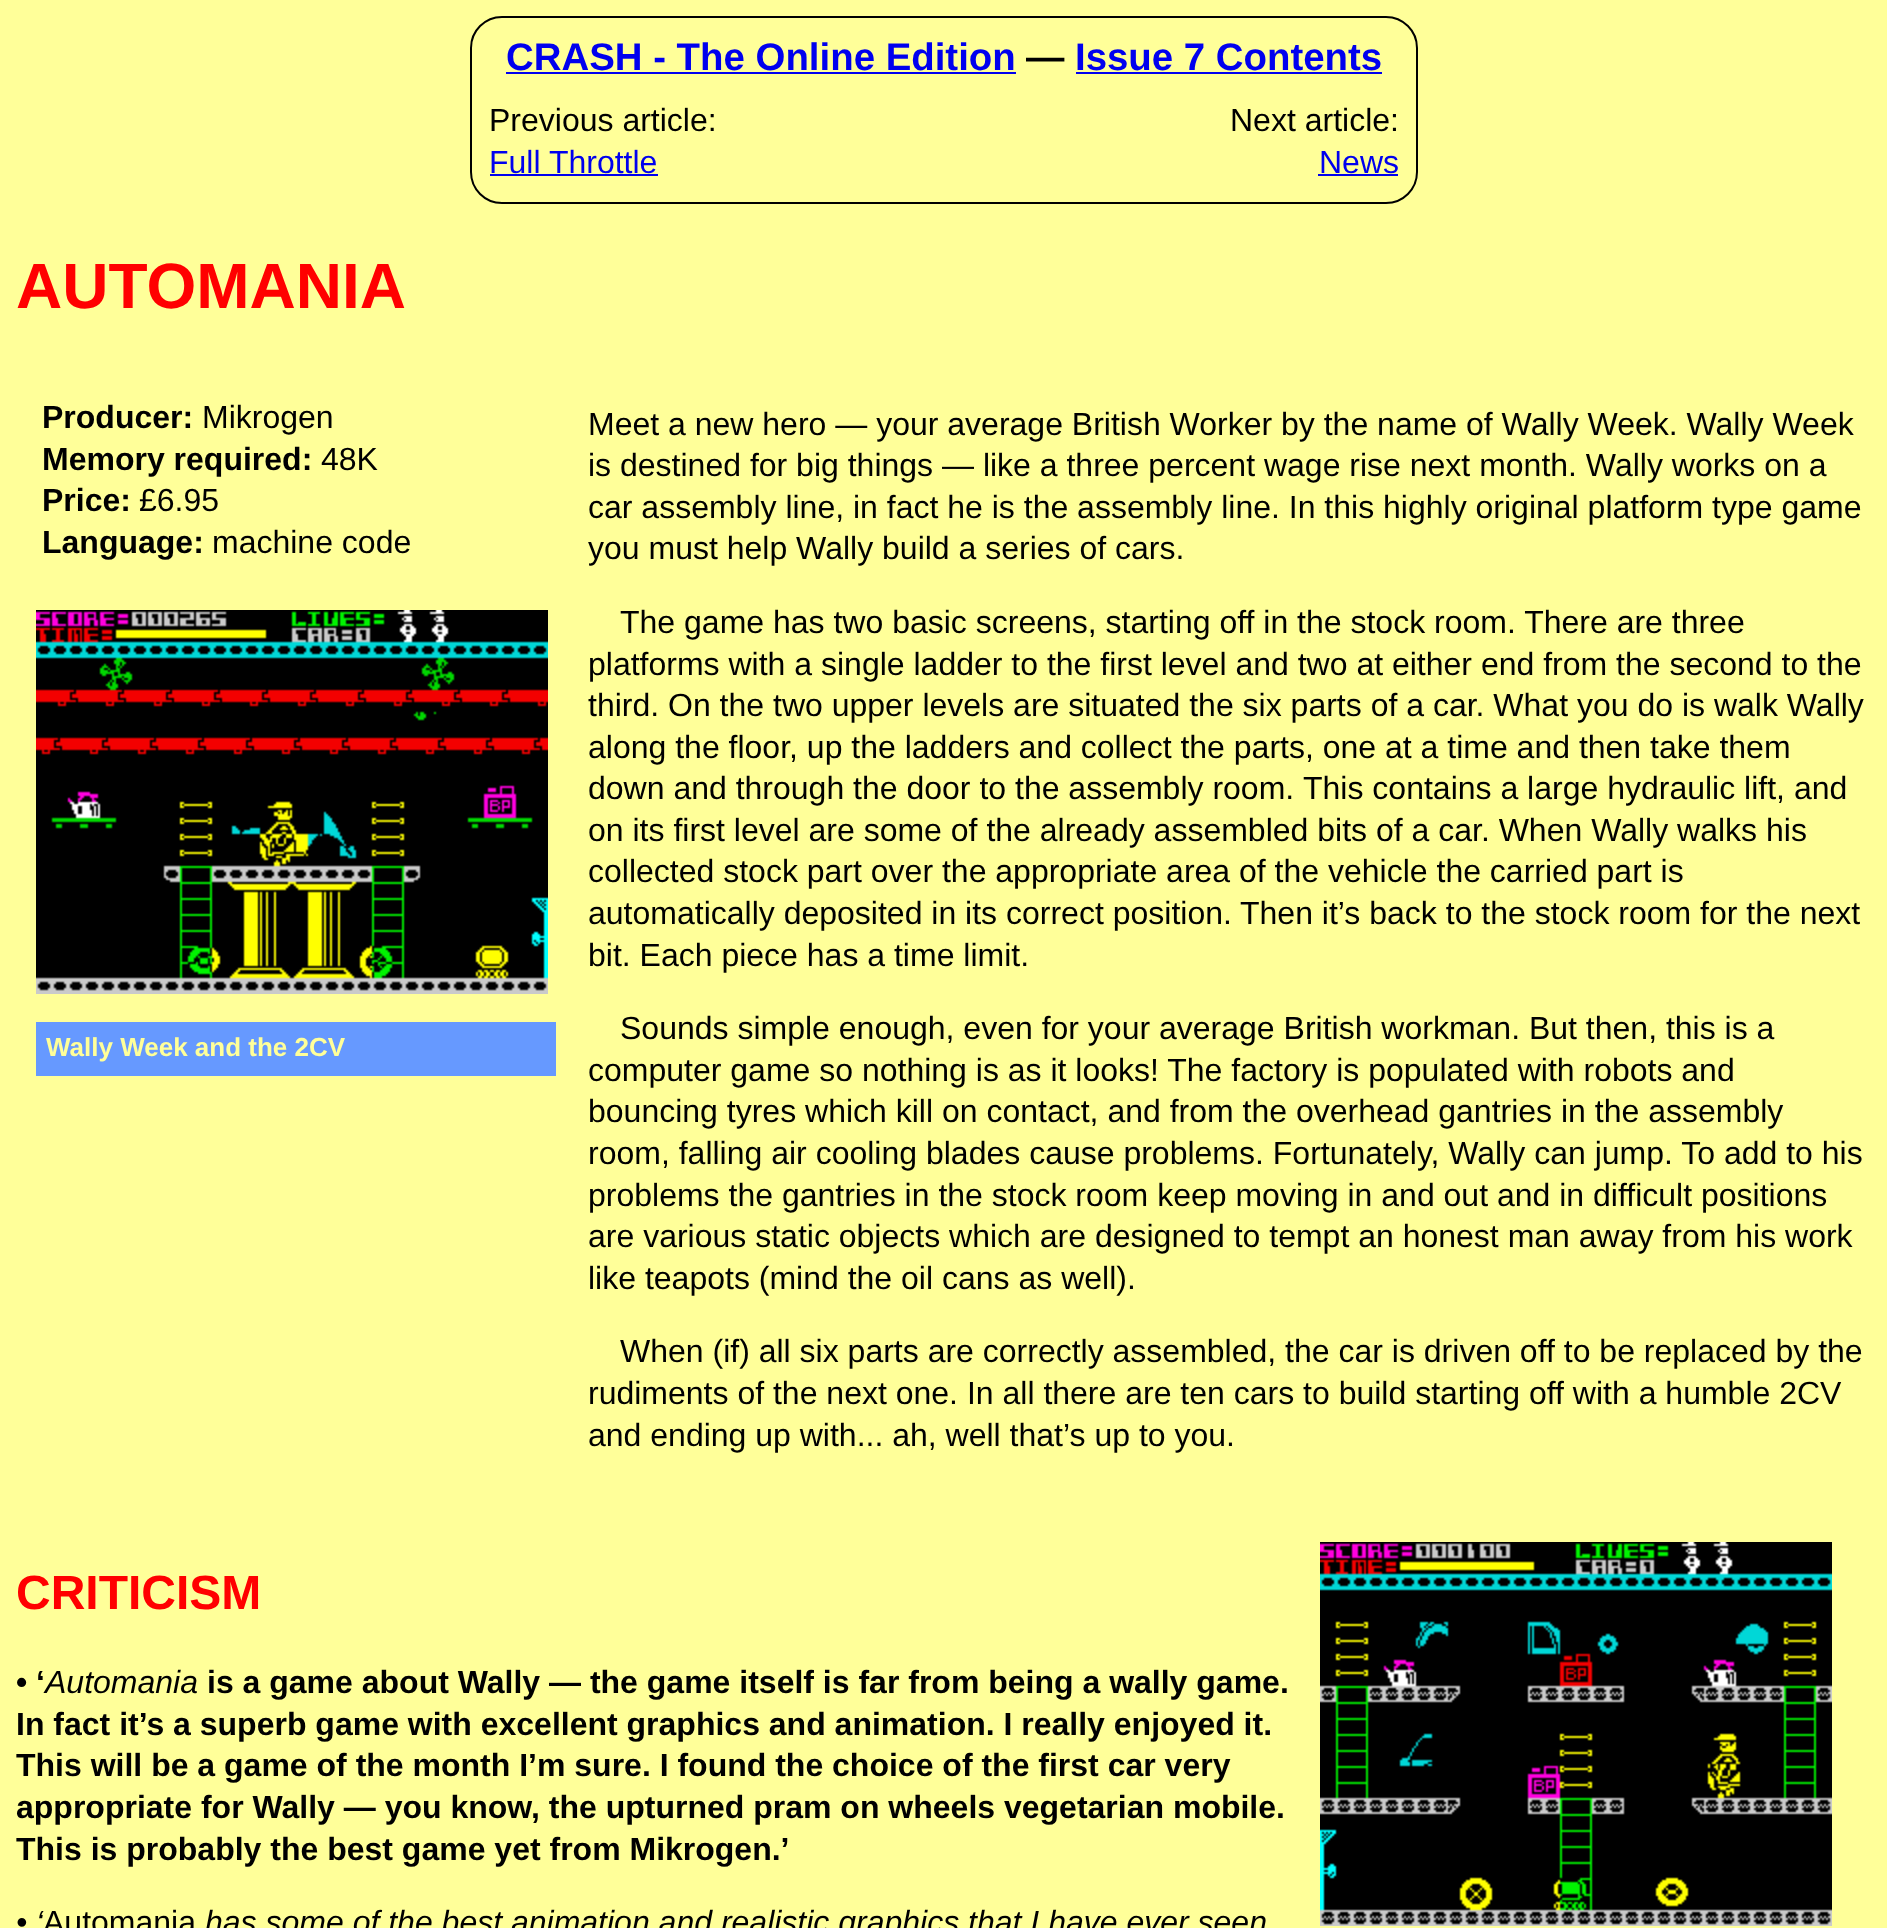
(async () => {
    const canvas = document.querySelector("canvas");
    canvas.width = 1887;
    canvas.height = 1928;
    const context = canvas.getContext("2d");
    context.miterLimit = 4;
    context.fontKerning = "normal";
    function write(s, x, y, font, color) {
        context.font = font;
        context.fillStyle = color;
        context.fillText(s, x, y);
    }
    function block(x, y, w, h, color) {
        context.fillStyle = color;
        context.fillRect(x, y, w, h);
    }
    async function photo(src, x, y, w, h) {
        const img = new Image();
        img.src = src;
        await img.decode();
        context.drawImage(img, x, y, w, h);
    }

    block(0, 0, 1887, 1928, "rgb(255, 255, 153)");
    context.beginPath();
    context.roundRect(471, 17, 946, 186, 31);
    context.strokeStyle = "rgb(0, 0, 0)";
    context.lineWidth = 2;
    context.stroke();
    write("CRASH - The Online Edition", 506, 70, "bold 38.4px Liberation Sans", "rgb(0, 0, 238)");
    block(506, 72, 510, 2, "rgb(0, 0, 238)");
    write("—", 1026, 70, "bold 38.4px Liberation Sans", "rgb(0, 0, 0)");
    write("Issue 7 Contents", 1075, 70, "bold 38.4px Liberation Sans", "rgb(0, 0, 238)");
    block(1076, 72, 306, 2, "rgb(0, 0, 238)");
    write("Previous article:", 489, 131, "32px Liberation Sans", "rgb(0, 0, 0)");
    write("Full Throttle", 489, 173, "32px Liberation Sans", "rgb(0, 0, 238)");
    block(490, 174, 168, 2, "rgb(0, 0, 238)");
    write("Next article:", 1230, 131, "32px Liberation Sans", "rgb(0, 0, 0)");
    write("News", 1319, 173, "32px Liberation Sans", "rgb(0, 0, 238)");
    block(1318, 174, 80, 2, "rgb(0, 0, 238)");
    write("AUTOMANIA", 16, 308, "bold 64px Liberation Sans", "rgb(255, 0, 0)");
    write("Producer:", 42, 428, "bold 32px Liberation Sans", "rgb(0, 0, 0)");
    write("Mikrogen", 202, 428, "32px Liberation Sans", "rgb(0, 0, 0)");
    write("Memory required:", 42, 470, "bold 32px Liberation Sans", "rgb(0, 0, 0)");
    write("48K", 321, 470, "32px Liberation Sans", "rgb(0, 0, 0)");
    write("Price:", 42, 511, "bold 32px Liberation Sans", "rgb(0, 0, 0)");
    write("£6.95", 139, 511, "32px Liberation Sans", "rgb(0, 0, 0)");
    write("Language:", 42, 553, "bold 32px Liberation Sans", "rgb(0, 0, 0)");
    write("machine code", 212, 553, "32px Liberation Sans", "rgb(0, 0, 0)");
    await photo("media/1.png", 36, 610, 512, 384);
    block(36, 1022, 520, 54, "rgb(102, 153, 255)");
    write("Wally Week and the 2CV", 46, 1056, "bold 26px Liberation Sans", "rgb(255, 255, 153)");
    write("Meet a new hero — your average British Worker by the name of Wally Week. Wally Week", 588, 435, "32px Liberation Sans", "rgb(0, 0, 0)");
    write("is destined for big things — like a three percent wage rise next month. Wally works on a", 588, 476, "32px Liberation Sans", "rgb(0, 0, 0)");
    write("car assembly line, in fact he is the assembly line. In this highly original platform type game", 588, 518, "32px Liberation Sans", "rgb(0, 0, 0)");
    write("you must help Wally build a series of cars.", 588, 559, "32px Liberation Sans", "rgb(0, 0, 0)");
    write("The game has two basic screens, starting off in the stock room. There are three", 620, 633, "32px Liberation Sans", "rgb(0, 0, 0)");
    write("platforms with a single ladder to the first level and two at either end from the second to the", 588, 675, "32px Liberation Sans", "rgb(0, 0, 0)");
    write("third. On the two upper levels are situated the six parts of a car. What you do is walk Wally", 588, 716, "32px Liberation Sans", "rgb(0, 0, 0)");
    write("along the floor, up the ladders and collect the parts, one at a time and then take them", 588, 758, "32px Liberation Sans", "rgb(0, 0, 0)");
    write("down and through the door to the assembly room.", 588, 799, "32px Liberation Sans", "rgb(0, 0, 0)");
    write("This contains a large hydraulic lift, and", 1303, 799, "32px Liberation Sans", "rgb(0, 0, 0)");
    write("on its first level are some of the already assembled bits of a car. When Wally walks his", 588, 841, "32px Liberation Sans", "rgb(0, 0, 0)");
    write("collected stock part over the appropriate area of the vehicle the carried part is", 588, 882, "32px Liberation Sans", "rgb(0, 0, 0)");
    write("automatically deposited in its correct position.", 588, 924, "32px Liberation Sans", "rgb(0, 0, 0)");
    write("Then it’s back to the stock room for the next", 1240, 924, "32px Liberation Sans", "rgb(0, 0, 0)");
    write("bit. Each piece has a time limit.", 588, 966, "32px Liberation Sans", "rgb(0, 0, 0)");
    write("Sounds simple enough, even for your average British workman. But then, this is a", 620, 1039, "32px Liberation Sans", "rgb(0, 0, 0)");
    write("computer game so nothing is as it looks! The factory is populated with robots and", 588, 1081, "32px Liberation Sans", "rgb(0, 0, 0)");
    write("bouncing tyres which kill on contact, and from the overhead gantries in the assembly", 588, 1122, "32px Liberation Sans", "rgb(0, 0, 0)");
    write("room, falling air cooling blades cause problems. Fortunately, Wally can jump. To add to his", 588, 1164, "32px Liberation Sans", "rgb(0, 0, 0)");
    write("problems the gantries in the stock room keep moving in and out and in difficult positions", 588, 1206, "32px Liberation Sans", "rgb(0, 0, 0)");
    write("are various static objects which are designed to tempt an honest man away from his work", 588, 1247, "32px Liberation Sans", "rgb(0, 0, 0)");
    write("like teapots (mind the oil cans as well).", 588, 1289, "32px Liberation Sans", "rgb(0, 0, 0)");
    write("When (if) all six parts are correctly assembled, the car is driven off to be replaced by the", 620, 1362, "32px Liberation Sans", "rgb(0, 0, 0)");
    write("rudiments of the next one. In all there are ten cars to build starting off with a humble 2CV", 588, 1404, "32px Liberation Sans", "rgb(0, 0, 0)");
    write("and ending up with... ah, well that’s up to you.", 588, 1446, "32px Liberation Sans", "rgb(0, 0, 0)");
    write("CRITICISM", 16, 1609, "bold 48px Liberation Sans", "rgb(255, 0, 0)");
    write("• ‘", 16, 1693, "bold 32px Liberation Sans", "rgb(0, 0, 0)");
    write("Automania", 45, 1693, "italic 32px Liberation Sans", "rgb(0, 0, 0)");
    write("is a game about Wally — the game itself is far from being a wally game.", 207, 1693, "bold 32px Liberation Sans", "rgb(0, 0, 0)");
    write("In fact it’s a superb game with excellent graphics and animation. I really enjoyed it.", 16, 1735, "bold 32px Liberation Sans", "rgb(0, 0, 0)");
    write("This will be a game of the month I’m sure. I found the choice of the first car very", 16, 1776, "bold 32px Liberation Sans", "rgb(0, 0, 0)");
    write("appropriate for Wally — you know, the upturned pram on wheels vegetarian mobile.", 16, 1818, "bold 32px Liberation Sans", "rgb(0, 0, 0)");
    write("This is probably the best game yet from Mikrogen.’", 16, 1860, "bold 32px Liberation Sans", "rgb(0, 0, 0)");
    write("• ‘", 16, 1933, "italic 32px Liberation Sans", "rgb(0, 0, 0)");
    write("Automania", 43, 1933, "32px Liberation Sans", "rgb(0, 0, 0)");
    write("has some of the best animation and realistic graphics that I have ever seen", 205, 1933, "italic 32px Liberation Sans", "rgb(0, 0, 0)");
    await photo("media/2.png", 1320, 1542, 512, 384);
})();
